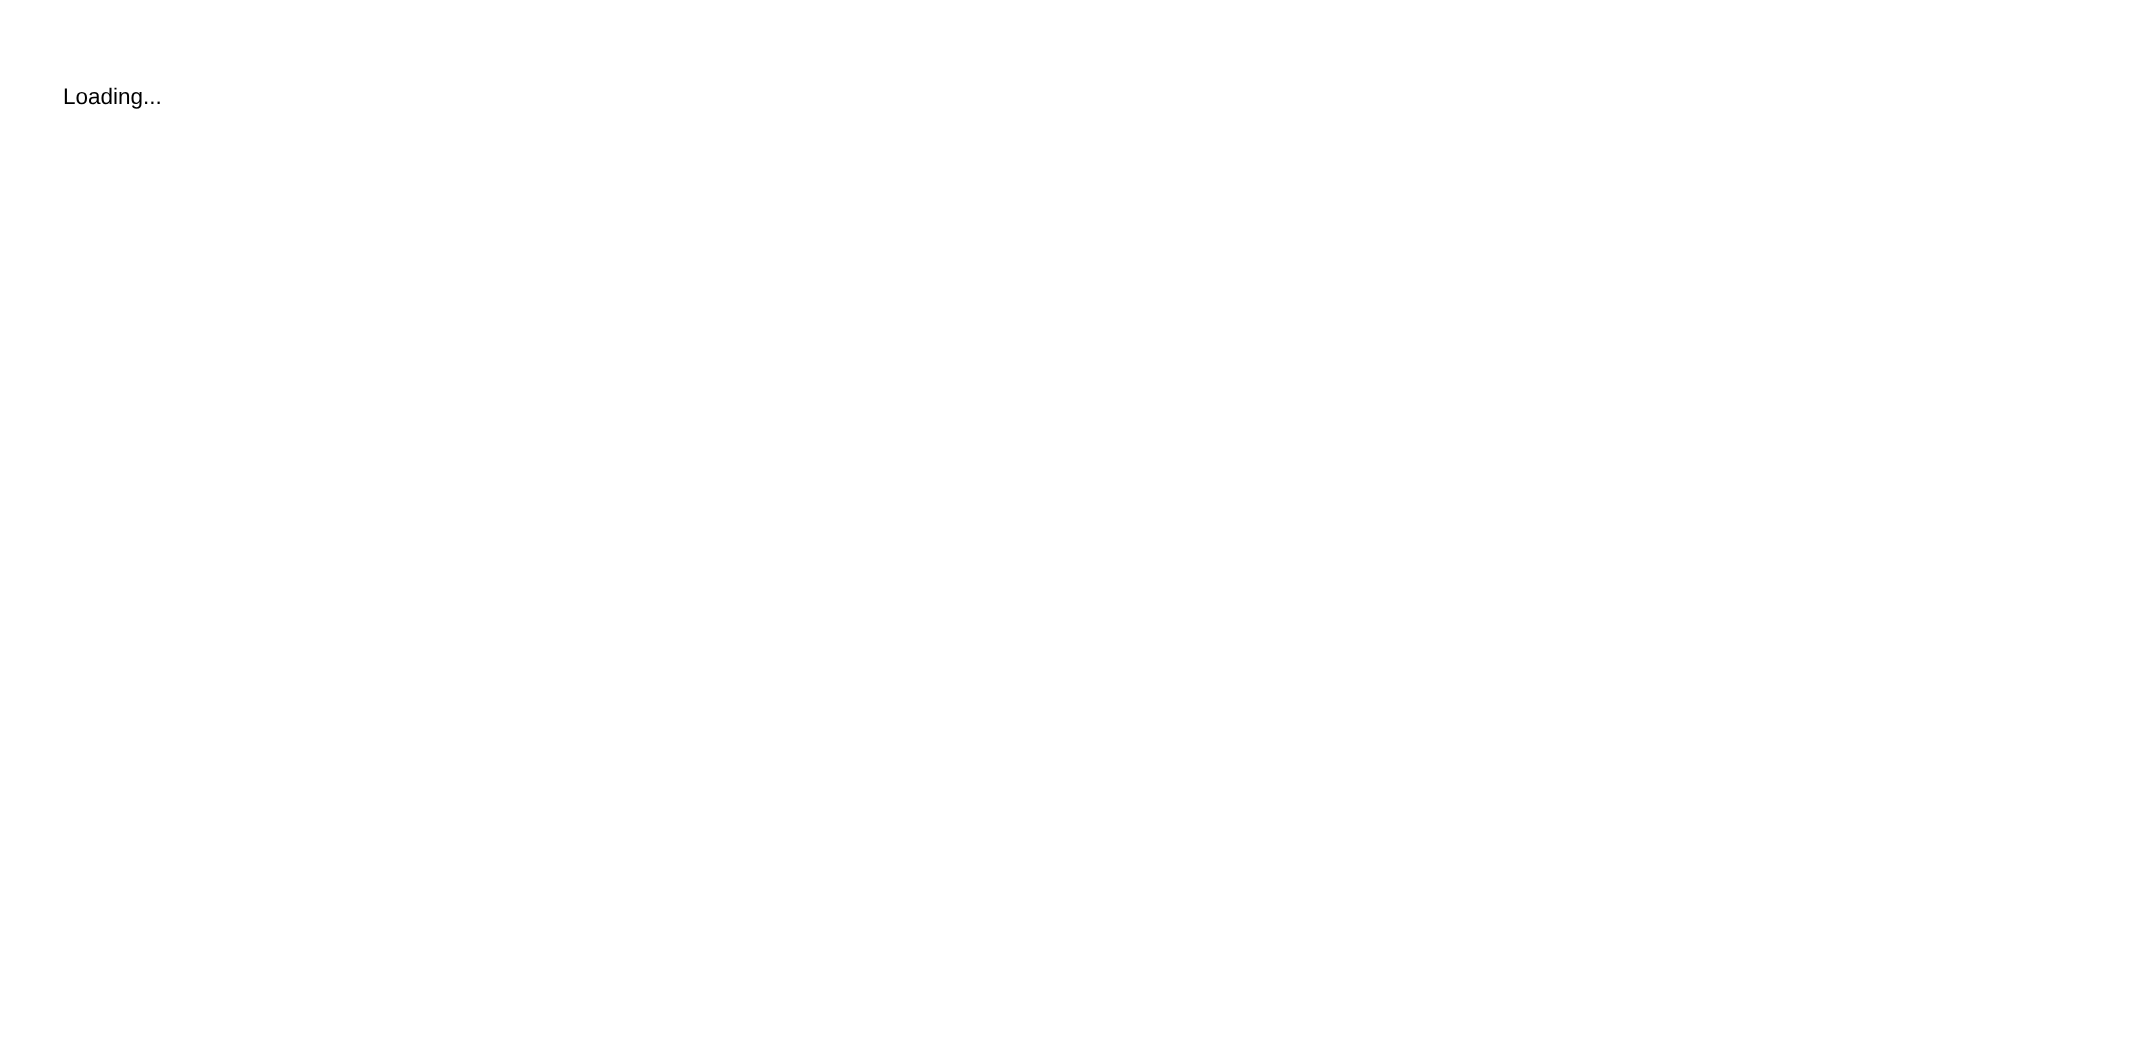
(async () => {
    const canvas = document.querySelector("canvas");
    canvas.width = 2142;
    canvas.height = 1056;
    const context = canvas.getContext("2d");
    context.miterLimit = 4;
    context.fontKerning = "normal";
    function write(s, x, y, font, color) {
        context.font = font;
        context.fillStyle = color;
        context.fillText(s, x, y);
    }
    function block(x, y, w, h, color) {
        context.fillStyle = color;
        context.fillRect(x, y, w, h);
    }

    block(0, 0, 2142, 1056, "rgb(255, 255, 255)");
    write("Loading...", 63, 104, "22.5px Liberation Sans", "rgb(0, 0, 0)");
})();
